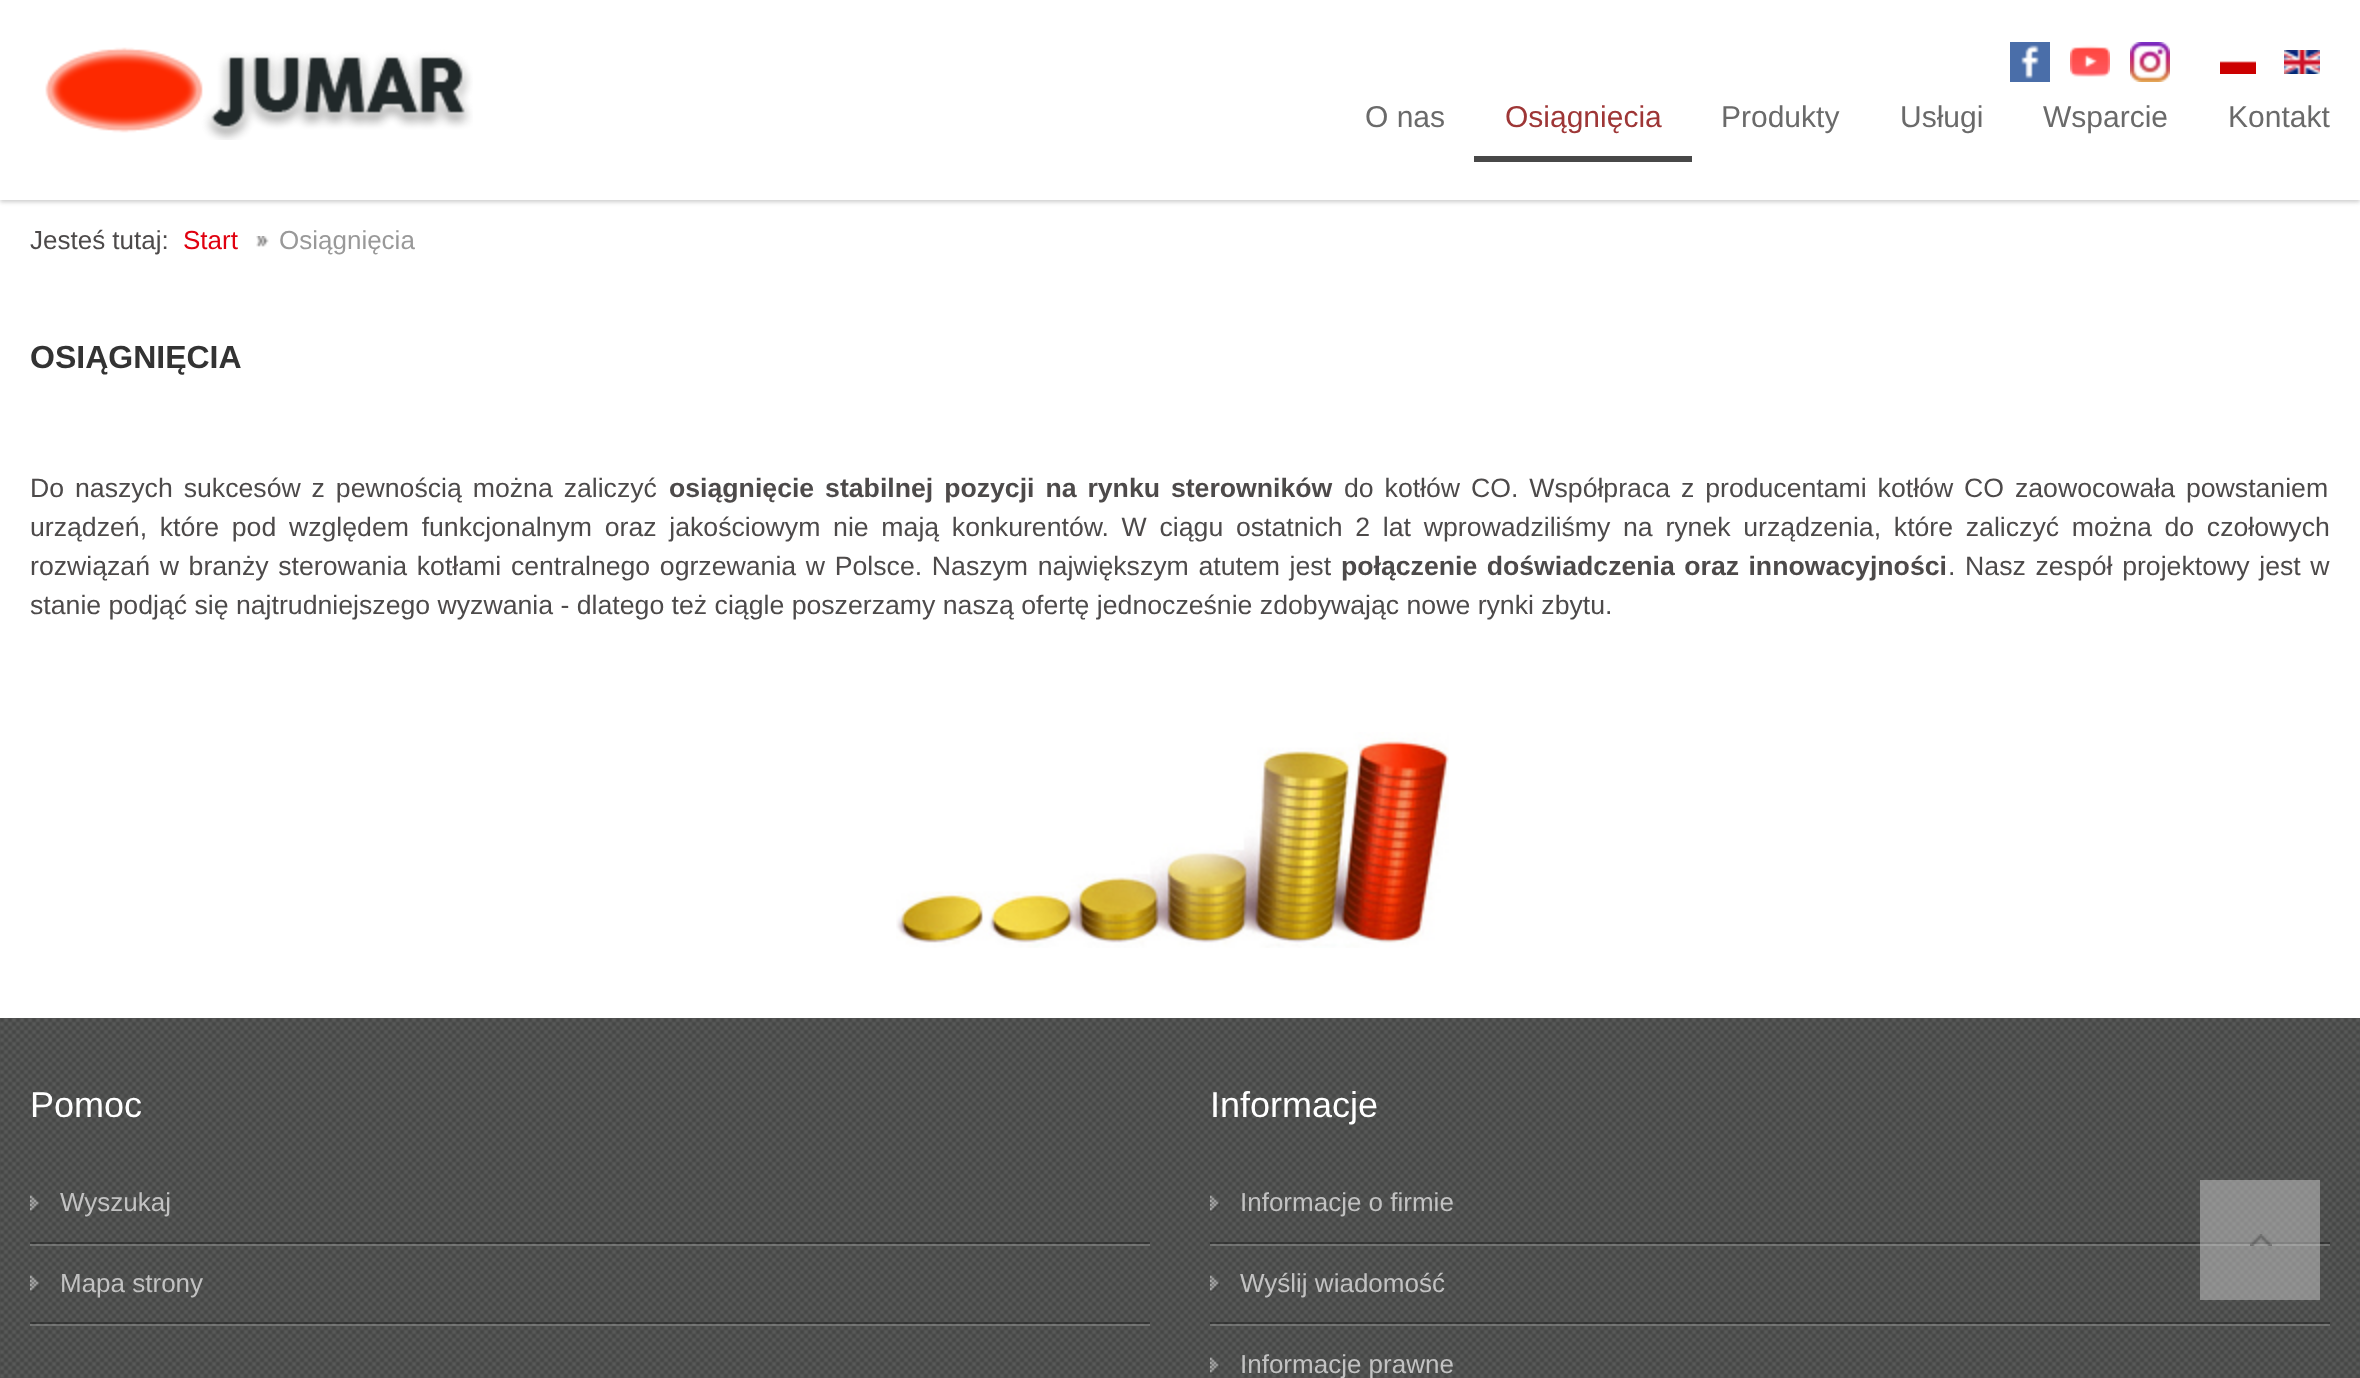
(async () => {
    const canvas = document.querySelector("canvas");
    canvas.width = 2360;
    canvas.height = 1378;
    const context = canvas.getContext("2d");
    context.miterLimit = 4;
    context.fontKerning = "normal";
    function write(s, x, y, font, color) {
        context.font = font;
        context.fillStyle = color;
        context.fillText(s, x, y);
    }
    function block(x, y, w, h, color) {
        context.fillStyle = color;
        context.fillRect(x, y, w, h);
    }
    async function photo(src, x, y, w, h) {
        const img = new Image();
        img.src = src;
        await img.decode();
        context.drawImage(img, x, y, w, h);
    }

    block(0, 0, 2360, 1378, "rgb(255, 255, 255)");
    context.fillStyle = "rgba(0, 0, 0, 0.2)";
    context.filter = "blur(2px)";
    context.beginPath();
    context.rect(0, 2, 2360, 200);
    context.fill();
    context.filter = "none";
    block(0, 0, 2360, 200, "rgb(255, 255, 255)");
    await photo("media/1.png", 45, 47, 428, 93);
    await photo("media/2.png", 2010, 42, 40, 40);
    await photo("media/3.png", 2070, 45, 40, 32);
    await photo("media/4.png", 2130, 42, 40, 40);
    await photo("media/5.png", 2220, 61, 36, 13);
    await photo("media/6.png", 2284, 50, 36, 24);
    write("O nas", 1365, 127, "30px Liberation Sans", "rgb(106, 106, 106)");
    block(1474, 156, 218, 6, "rgb(72, 72, 72)");
    write("Osiągnięcia", 1505, 127, "30px Liberation Sans", "rgb(158, 54, 54)");
    write("Produkty", 1721, 127, "30px Liberation Sans", "rgb(106, 106, 106)");
    write("Usługi", 1900, 127, "30px Liberation Sans", "rgb(106, 106, 106)");
    write("Wsparcie", 2043, 127, "30px Liberation Sans", "rgb(106, 106, 106)");
    write("Kontakt", 2228, 127, "30px Liberation Sans", "rgb(106, 106, 106)");
    write("Jesteś tutaj:", 30, 249, "26px Liberation Sans", "rgb(77, 74, 74)");
    write("Start", 183, 249, "26px Liberation Sans", "rgb(224, 0, 15)");
    await photo("media/7.png", 256, 236, 13, 11);
    write("Osiągnięcia", 279, 249, "26px Liberation Sans", "rgb(153, 153, 153)");
    write("OSIĄGNIĘCIA", 30, 368, "bold 32px Liberation Sans", "rgb(51, 51, 51)");
    context.wordSpacing = "3.5px";
    write("Do naszych sukcesów z pewnością można zaliczyć", 30, 497, "26.67px Liberation Sans", "rgb(77, 74, 74)");
    write("osiągnięcie stabilnej pozycji na rynku sterowników", 669, 497, "bold 26.67px Liberation Sans", "rgb(77, 74, 74)");
    write("do kotłów CO. Współpraca z producentami kotłów CO zaowocowała powstaniem", 1344, 497, "26.67px Liberation Sans", "rgb(77, 74, 74)");
    context.wordSpacing = "5.3px";
    write("urządzeń, które pod względem funkcjonalnym oraz jakościowym nie mają konkurentów. W ciągu ostatnich 2 lat wprowadziliśmy na rynek urządzenia, które zaliczyć można do czołowych", 30, 536, "26.67px Liberation Sans", "rgb(77, 74, 74)");
    context.wordSpacing = "2.25px";
    write("rozwiązań w branży sterowania kotłami centralnego ogrzewania w Polsce. Naszym największym atutem jest", 30, 575, "26.67px Liberation Sans", "rgb(77, 74, 74)");
    context.wordSpacing = "2px";
    write("połączenie doświadczenia oraz innowacyjności", 1341, 575, "bold 26.67px Liberation Sans", "rgb(77, 74, 74)");
    context.wordSpacing = "2.25px";
    write(". Nasz zespół projektowy jest w", 1948, 575, "26.67px Liberation Sans", "rgb(77, 74, 74)");
    context.wordSpacing = "0px";
    write("stanie podjąć się najtrudniejszego wyzwania - dlatego też ciągle poszerzamy naszą ofertę jednocześnie zdobywając nowe rynki zbytu.", 30, 614, "26.67px Liberation Sans", "rgb(77, 74, 74)");
    await photo("media/8.png", 896, 732, 553, 216);
    block(0, 1018, 2360, 360, "rgb(76, 77, 76)");
    await photo("media/9.png", 0, 1018, 2360, 360);
    write("Pomoc", 30, 1117, "36px Liberation Sans", "rgb(255, 255, 255)");
    block(30, 1244, 1120, 2, "rgba(255, 255, 255, 0.2)");
    await photo("media/10.png", 30, 1195, 10, 17);
    block(30, 1242, 1120, 2, "rgba(0, 0, 0, 0.3)");
    write("Wyszukaj", 60, 1211, "26px Liberation Sans", "rgb(194, 194, 194)");
    block(30, 1324, 1120, 2, "rgba(255, 255, 255, 0.2)");
    await photo("media/10.png", 30, 1275, 10, 17);
    block(30, 1322, 1120, 2, "rgba(0, 0, 0, 0.3)");
    write("Mapa strony", 60, 1292, "26px Liberation Sans", "rgb(194, 194, 194)");
    write("Informacje", 1210, 1117, "36px Liberation Sans", "rgb(255, 255, 255)");
    block(1210, 1244, 1120, 2, "rgba(255, 255, 255, 0.2)");
    await photo("media/11.png", 1210, 1195, 10, 17);
    block(1210, 1242, 1120, 2, "rgba(0, 0, 0, 0.3)");
    write("Informacje o firmie", 1240, 1211, "26px Liberation Sans", "rgb(194, 194, 194)");
    block(1210, 1324, 1120, 2, "rgba(255, 255, 255, 0.2)");
    await photo("media/11.png", 1210, 1275, 10, 17);
    block(1210, 1322, 1120, 2, "rgba(0, 0, 0, 0.3)");
    write("Wyślij wiadomość", 1240, 1292, "26px Liberation Sans", "rgb(194, 194, 194)");
    await photo("media/12.png", 1210, 1357, 10, 17);
    write("Informacje prawne", 1240, 1373, "26px Liberation Sans", "rgb(194, 194, 194)");
    block(2200, 1180, 120, 120, "rgba(204, 204, 204, 0.5)");
    await photo("media/13.png", 2250, 1234, 22, 12);
})();
